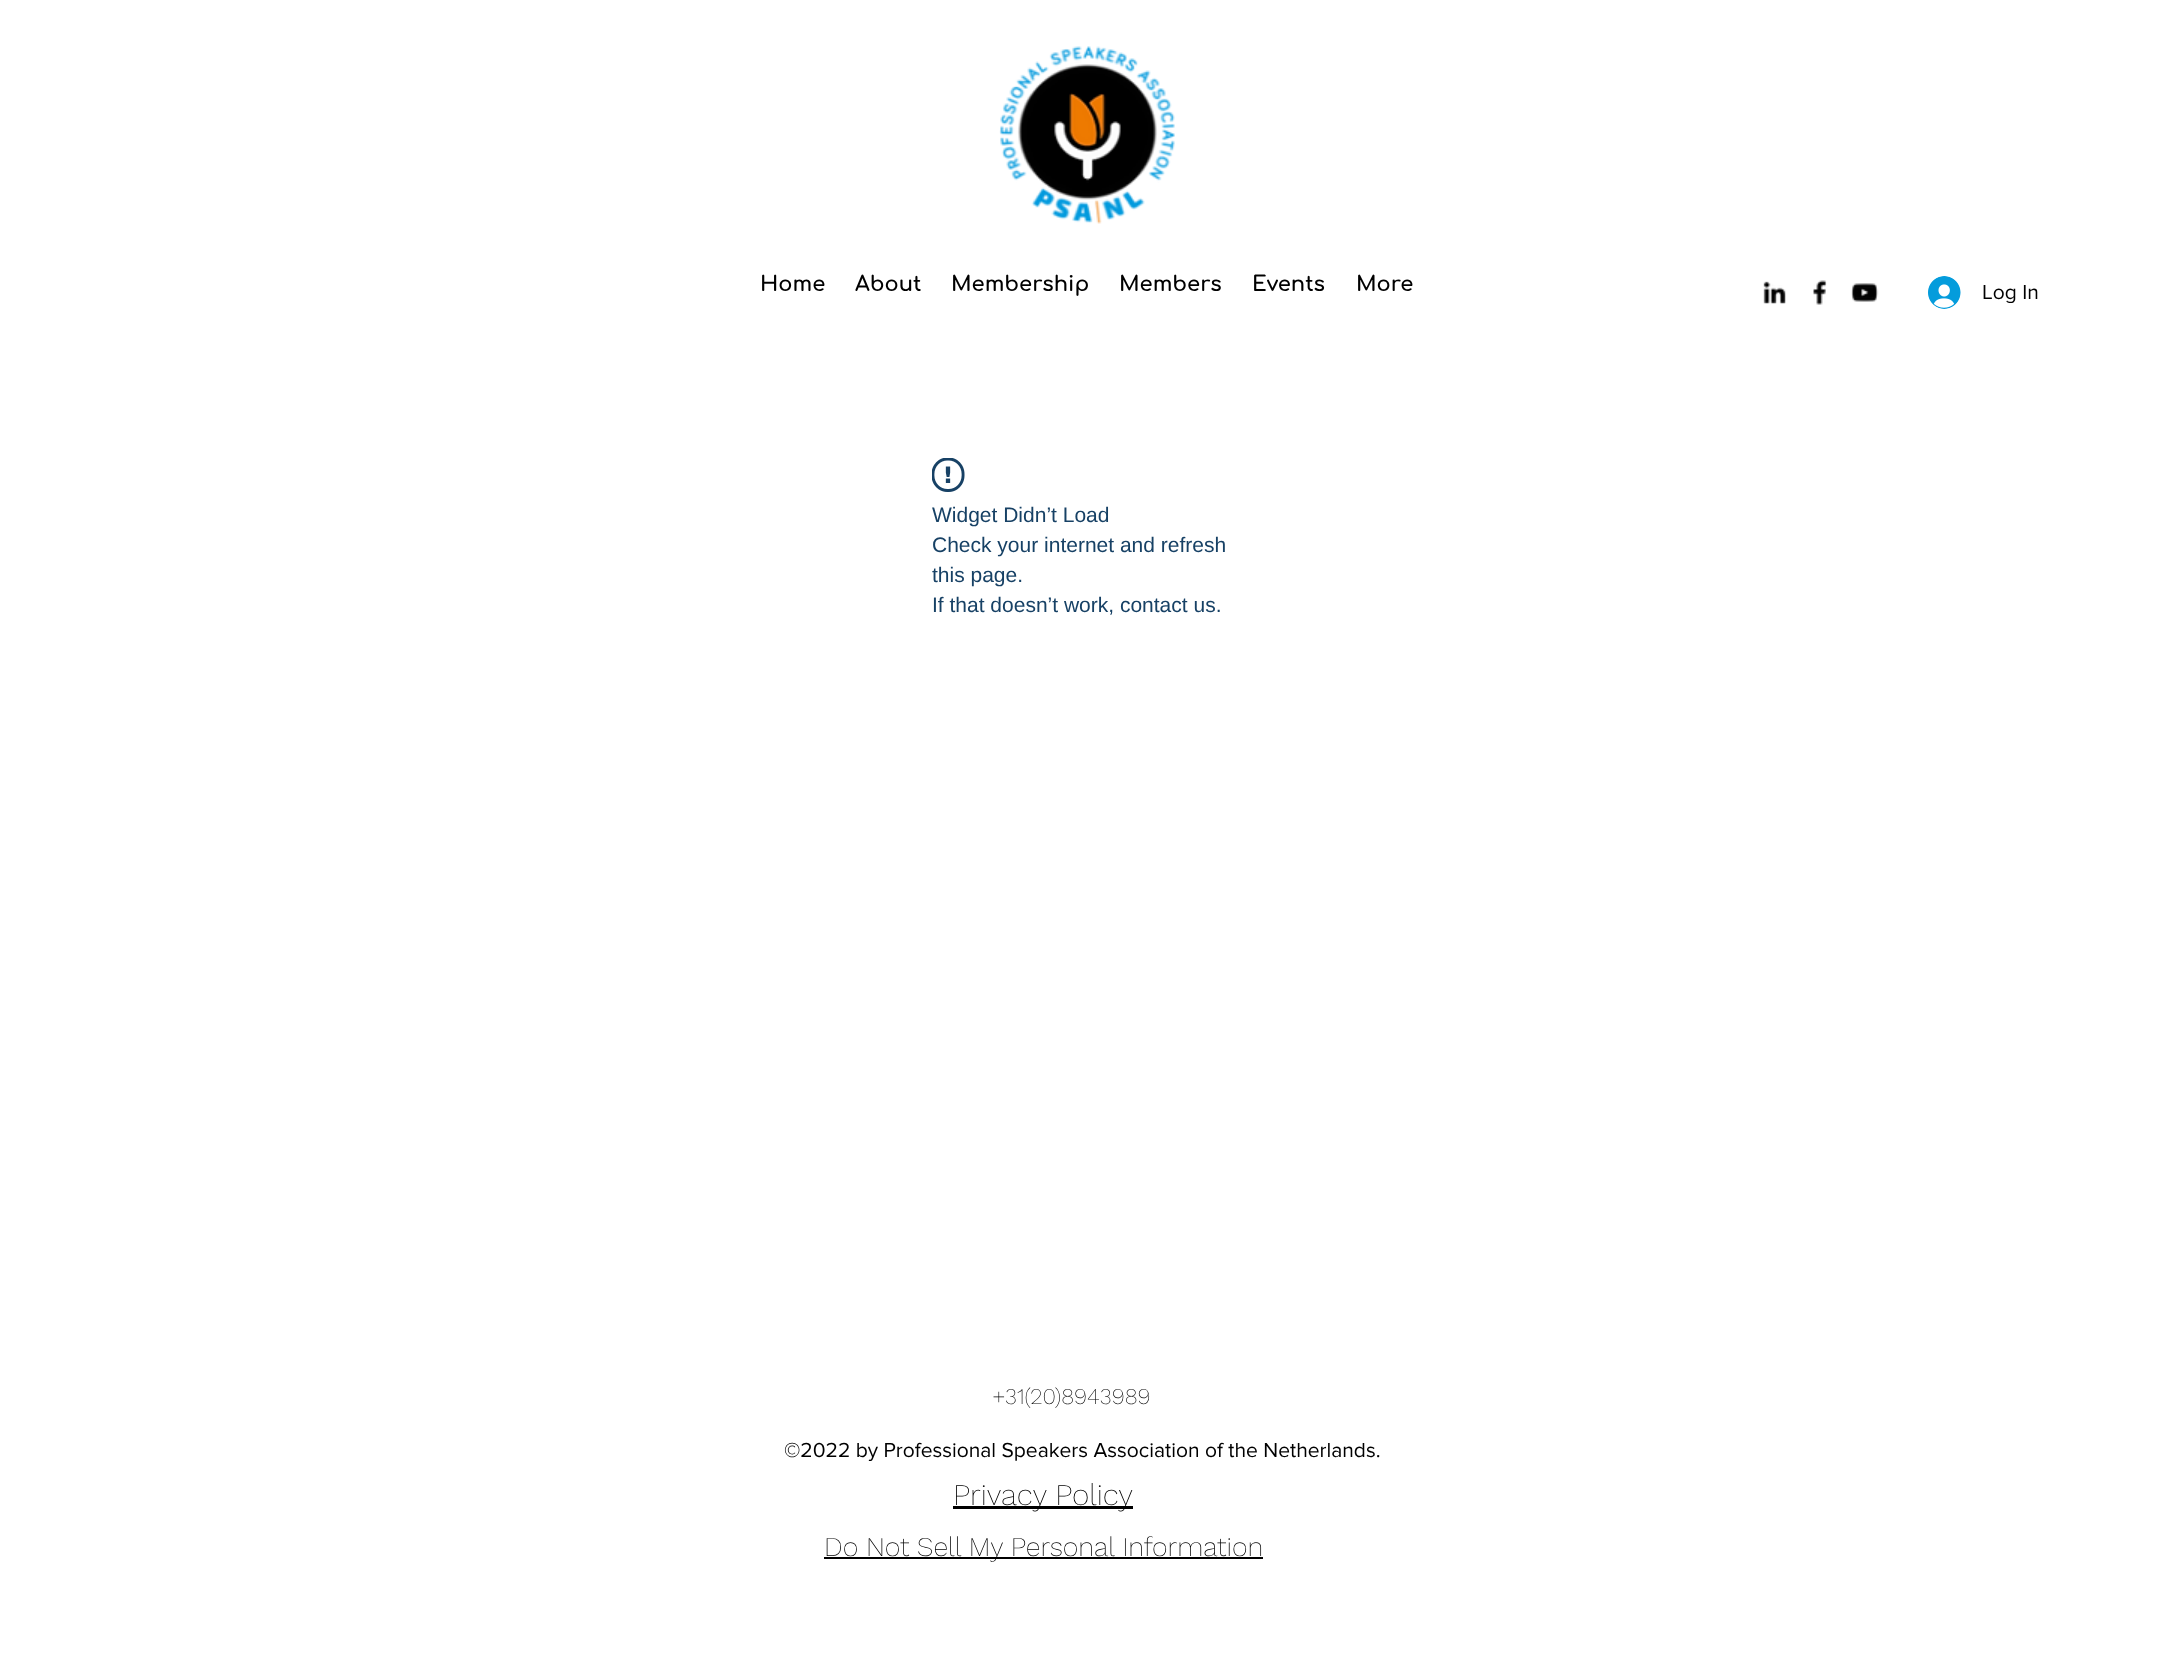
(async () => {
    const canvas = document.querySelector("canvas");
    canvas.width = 2172;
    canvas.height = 1670;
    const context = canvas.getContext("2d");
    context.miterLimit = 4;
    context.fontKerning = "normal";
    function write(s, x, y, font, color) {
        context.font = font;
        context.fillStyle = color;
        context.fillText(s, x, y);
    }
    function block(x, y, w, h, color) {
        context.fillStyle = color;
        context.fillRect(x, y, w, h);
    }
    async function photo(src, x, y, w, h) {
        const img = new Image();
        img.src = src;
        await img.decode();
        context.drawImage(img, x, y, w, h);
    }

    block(0, 0, 2172, 1670, "rgb(255, 255, 255)");
    await photo("media/1.png", 999, 46, 176, 178);
    write("Home", 760, 291, "bold 21px Comfortaa", "rgb(0, 0, 0)");
    write("About", 855, 291, "bold 21px Comfortaa", "rgb(0, 0, 0)");
    write("Membership", 951, 291, "bold 21px Comfortaa", "rgb(0, 0, 0)");
    write("Members", 1119, 291, "bold 21px Comfortaa", "rgb(0, 0, 0)");
    write("Events", 1252, 291, "bold 21px Comfortaa", "rgb(0, 0, 0)");
    write("More", 1356, 291, "bold 21px Comfortaa", "rgb(0, 0, 0)");
    await photo("media/2.png", 1763, 281, 23, 23);
    await photo("media/3.png", 1813, 280, 14, 25);
    await photo("media/4.png", 1851, 283, 28, 19);
    await photo("media/5.png", 1928, 276, 33, 33);
    write("Log In", 1982, 299, "21px 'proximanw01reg'", "rgb(0, 0, 0)");
    await photo("media/6.png", 932, 458, 33, 34);
    write("Widget Didn’t Load", 932, 522, "21px Liberation Sans", "rgb(23, 65, 101)");
    write("Check your internet and refresh", 932, 552, "21px Liberation Sans", "rgb(23, 65, 101)");
    write("this page.", 932, 582, "21px Liberation Sans", "rgb(23, 65, 101)");
    write("If that doesn’t work, contact us.", 932, 612, "21px Liberation Sans", "rgb(23, 65, 101)");
    write("+31(20)8943989", 992, 1404, "200 22.5px Work Sans", "rgb(0, 0, 0)");
    write("©2022 by Professional Speakers Association of the Netherlands.", 784, 1457, "21px 'proximanw01reg'", "rgb(0, 0, 0)");
    block(953, 1506, 180, 3, "rgb(0, 0, 0)");
    write("Privacy Policy", 953, 1505, "200 30px Work Sans", "rgb(0, 0, 0)");
    block(824, 1557, 439, 2, "rgb(0, 0, 0)");
    write("Do Not Sell My Personal Information", 824, 1556, "200 27px Work Sans", "rgb(0, 0, 0)");
})();
